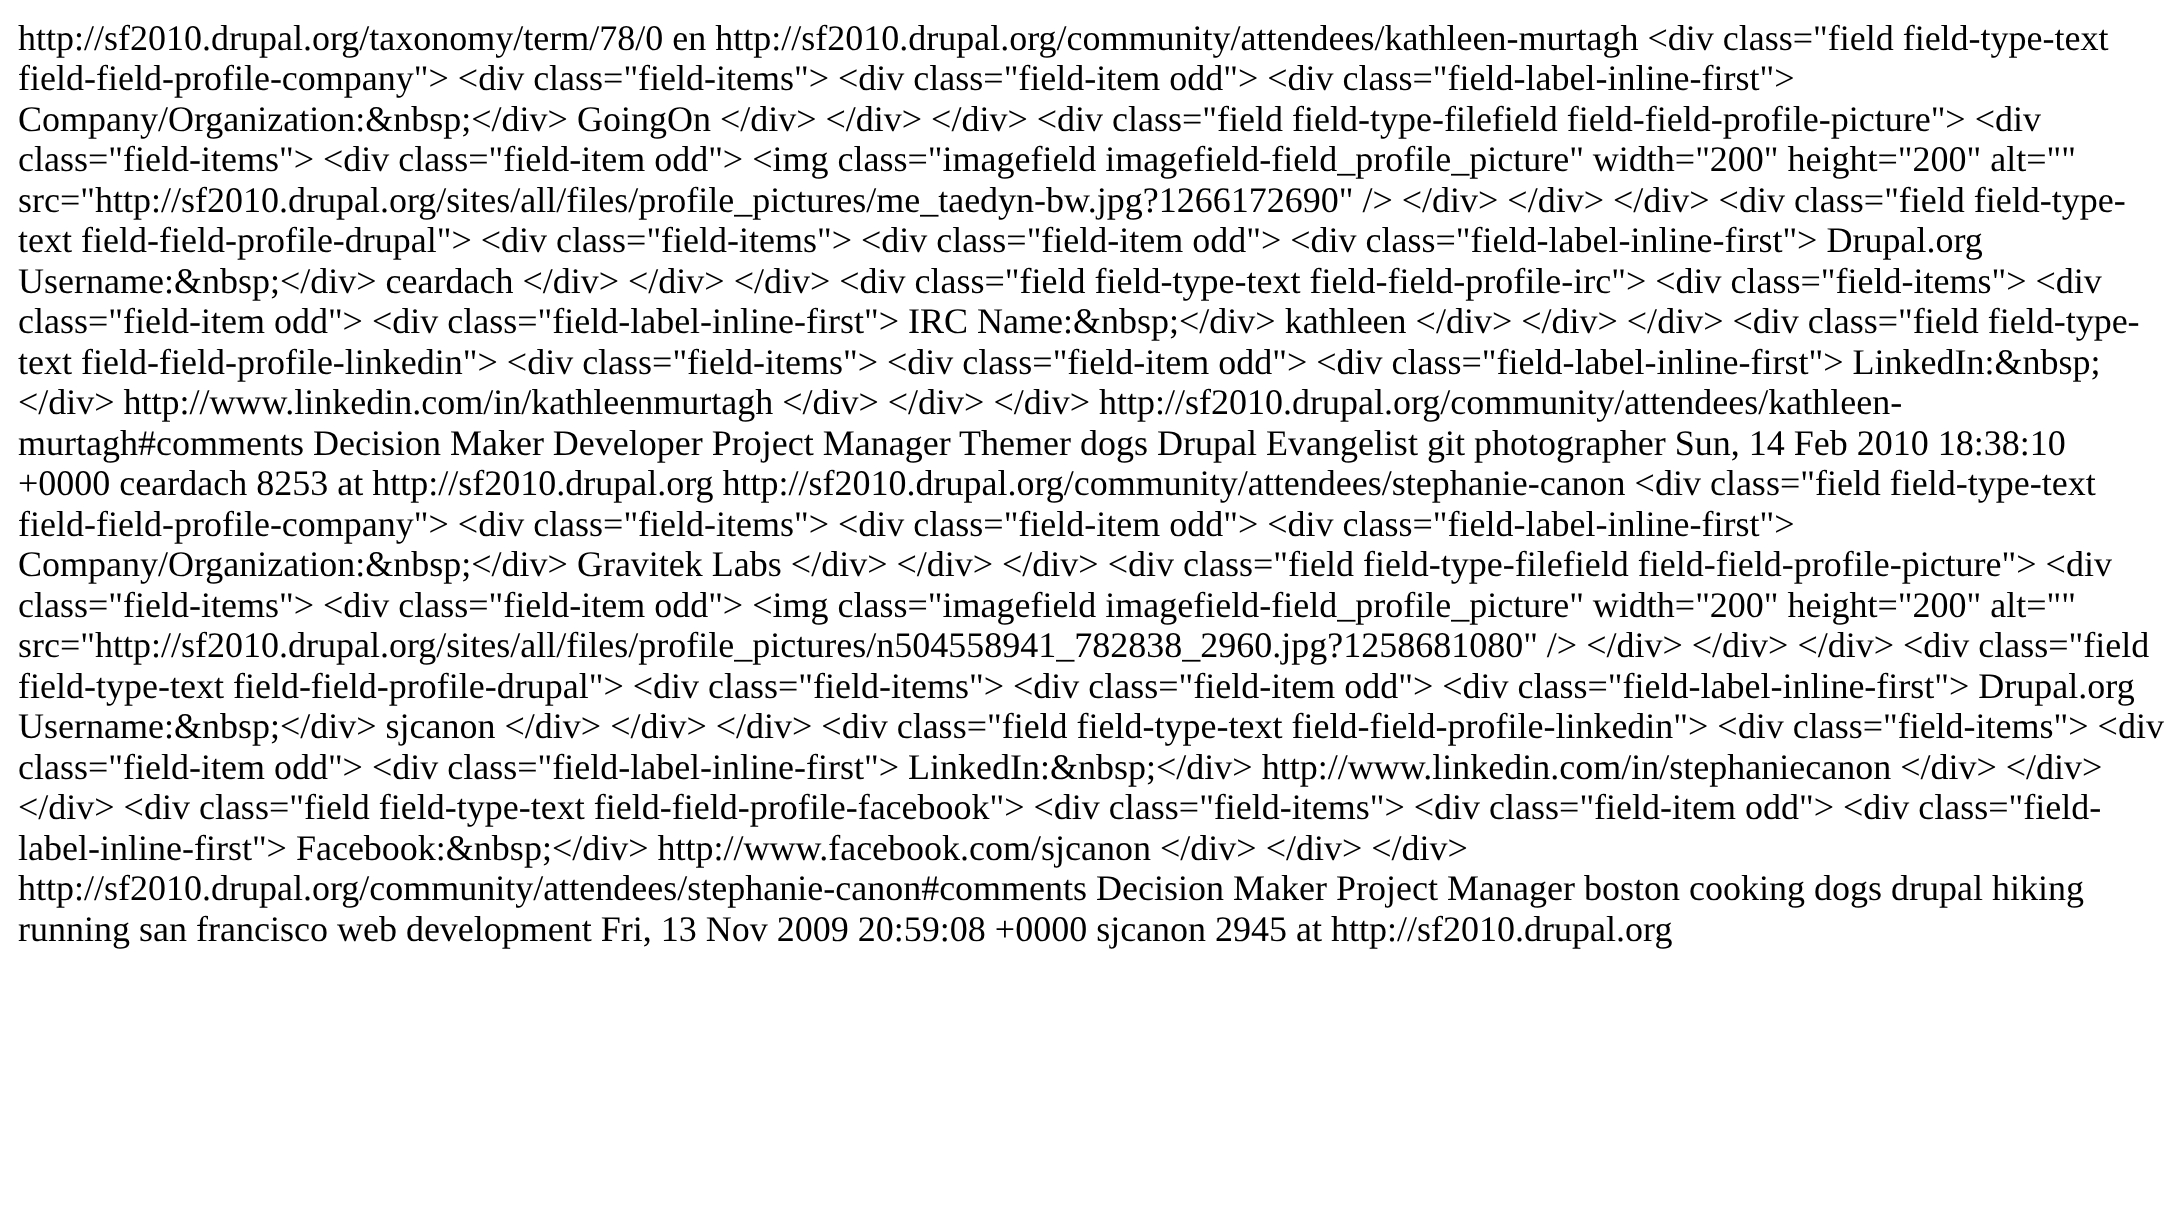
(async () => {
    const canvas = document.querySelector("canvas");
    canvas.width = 2181;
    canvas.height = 1214;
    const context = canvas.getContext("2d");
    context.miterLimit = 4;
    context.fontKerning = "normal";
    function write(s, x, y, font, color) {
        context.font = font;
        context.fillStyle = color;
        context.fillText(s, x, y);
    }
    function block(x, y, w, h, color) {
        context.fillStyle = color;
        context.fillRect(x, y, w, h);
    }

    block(0, 0, 2181, 1214, "rgb(255, 255, 255)");
    write("http://sf2010.drupal.org/taxonomy/term/78/0 en http://sf2010.drupal.org/community/attendees/kathleen-murtagh <div class=\"field field-type-text", 18, 50, "36px Liberation Serif", "rgb(0, 0, 0)");
    write("field-field-profile-company\"> <div class=\"field-items\"> <div class=\"field-item odd\"> <div class=\"field-label-inline-first\">", 18, 90, "36px Liberation Serif", "rgb(0, 0, 0)");
    write("Company/Organization:&nbsp;<\/div> GoingOn <\/div> <\/div> <\/div> <div class=\"field field-type-filefield field-field-profile-picture\"> <div", 18, 131, "36px Liberation Serif", "rgb(0, 0, 0)");
    write("class=\"field-items\"> <div class=\"field-item odd\"> <img class=\"imagefield imagefield-field_profile_picture\" width=\"200\" height=\"200\" alt=\"\"", 18, 171, "36px Liberation Serif", "rgb(0, 0, 0)");
    write("src=\"http://sf2010.drupal.org/sites/all/files/profile_pictures/me_taedyn-bw.jpg?1266172690\" /> <\/div> <\/div> <\/div> <div class=\"field field-type-", 18, 212, "36px Liberation Serif", "rgb(0, 0, 0)");
    write("text field-field-profile-drupal\"> <div class=\"field-items\"> <div class=\"field-item odd\"> <div class=\"field-label-inline-first\"> Drupal.org", 18, 252, "36px Liberation Serif", "rgb(0, 0, 0)");
    write("Username:&nbsp;<\/div> ceardach <\/div> <\/div> <\/div> <div class=\"field field-type-text field-field-profile-irc\"> <div class=\"field-items\"> <div", 18, 293, "36px Liberation Serif", "rgb(0, 0, 0)");
    write("class=\"field-item odd\"> <div class=\"field-label-inline-first\"> IRC Name:&nbsp;<\/div> kathleen <\/div> <\/div> <\/div> <div class=\"field field-type-", 18, 333, "36px Liberation Serif", "rgb(0, 0, 0)");
    write("text field-field-profile-linkedin\"> <div class=\"field-items\"> <div class=\"field-item odd\"> <div class=\"field-label-inline-first\"> LinkedIn:&nbsp;", 18, 374, "36px Liberation Serif", "rgb(0, 0, 0)");
    write("<\/div> http://www.linkedin.com/in/kathleenmurtagh <\/div> <\/div> <\/div> http://sf2010.drupal.org/community/attendees/kathleen-", 18, 414, "36px Liberation Serif", "rgb(0, 0, 0)");
    write("murtagh#comments Decision Maker Developer Project Manager", 18, 455, "36px Liberation Serif", "rgb(0, 0, 0)");
    write("Themer dogs Drupal Evangelist git photographer Sun, 14 Feb 2010 18:38:10", 959, 455, "36px Liberation Serif", "rgb(0, 0, 0)");
    write("+0000 ceardach 8253 at http://sf2010.drupal.org http://sf2010.drupal.org/community/attendees/stephanie-canon <div class=\"field field-type-text", 18, 495, "36px Liberation Serif", "rgb(0, 0, 0)");
    write("field-field-profile-company\"> <div class=\"field-items\"> <div class=\"field-item odd\"> <div class=\"field-label-inline-first\">", 18, 536, "36px Liberation Serif", "rgb(0, 0, 0)");
    write("Company/Organization:&nbsp;<\/div> Gravitek Labs <\/div> <\/div> <\/div> <div class=\"field field-type-filefield field-field-profile-picture\"> <div", 18, 576, "36px Liberation Serif", "rgb(0, 0, 0)");
    write("class=\"field-items\"> <div class=\"field-item odd\"> <img class=\"imagefield imagefield-field_profile_picture\" width=\"200\" height=\"200\" alt=\"\"", 18, 617, "36px Liberation Serif", "rgb(0, 0, 0)");
    write("src=\"http://sf2010.drupal.org/sites/all/files/profile_pictures/n504558941_782838_2960.jpg?1258681080\" /> <\/div> <\/div> <\/div> <div class=\"field", 18, 657, "36px Liberation Serif", "rgb(0, 0, 0)");
    write("field-type-text field-field-profile-drupal\"> <div class=\"field-items\"> <div class=\"field-item odd\"> <div class=\"field-label-inline-first\"> Drupal.org", 18, 698, "36px Liberation Serif", "rgb(0, 0, 0)");
    write("Username:&nbsp;<\/div> sjcanon <\/div> <\/div> <\/div> <div class=\"field field-type-text field-field-profile-linkedin\"> <div class=\"field-items\"> <div", 18, 738, "36px Liberation Serif", "rgb(0, 0, 0)");
    write("class=\"field-item odd\"> <div class=\"field-label-inline-first\"> LinkedIn:&nbsp;<\/div> http://www.linkedin.com/in/stephaniecanon <\/div> <\/div>", 18, 779, "36px Liberation Serif", "rgb(0, 0, 0)");
    write("<\/div> <div class=\"field field-type-text field-field-profile-facebook\"> <div class=\"field-items\"> <div class=\"field-item odd\"> <div class=\"field-", 18, 819, "36px Liberation Serif", "rgb(0, 0, 0)");
    write("label-inline-first\"> Facebook:&nbsp;<\/div> http://www.facebook.com/sjcanon <\/div> <\/div> <\/div>", 18, 860, "36px Liberation Serif", "rgb(0, 0, 0)");
    write("http://sf2010.drupal.org/community/attendees/stephanie-canon#comments Decision Maker Project Manager boston cooking dogs drupal hiking", 18, 900, "36px Liberation Serif", "rgb(0, 0, 0)");
    write("running san francisco web development Fri, 13 Nov 2009 20:59:08 +0000 sjcanon 2945 at http://sf2010.drupal.org", 18, 941, "36px Liberation Serif", "rgb(0, 0, 0)");
})();
